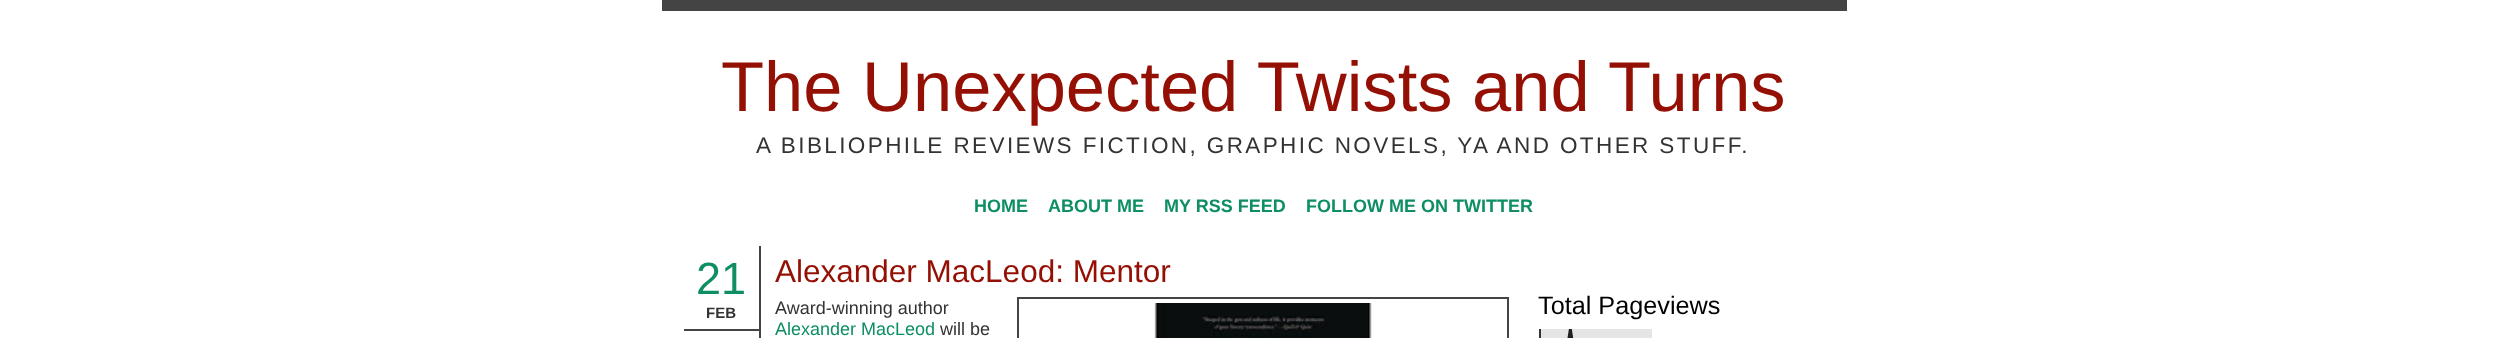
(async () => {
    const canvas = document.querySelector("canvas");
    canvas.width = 2506;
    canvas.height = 338;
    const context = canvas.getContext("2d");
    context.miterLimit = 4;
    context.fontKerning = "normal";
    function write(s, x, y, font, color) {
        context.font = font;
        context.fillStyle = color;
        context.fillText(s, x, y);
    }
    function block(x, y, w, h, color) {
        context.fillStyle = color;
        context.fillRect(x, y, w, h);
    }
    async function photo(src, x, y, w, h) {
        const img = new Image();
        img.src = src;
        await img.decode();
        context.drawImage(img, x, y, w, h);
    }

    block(0, 0, 2506, 338, "rgb(255, 255, 255)");
    block(662, 0, 1185, 11, "rgb(68, 68, 68)");
    write("The Unexpected Twists and Turns", 721, 111, "70.5px Liberation Sans", "rgb(148, 15, 4)");
    context.letterSpacing = "2.4px";
    write("A BIBLIOPHILE REVIEWS FICTION, GRAPHIC NOVELS, YA AND OTHER STUFF.", 756, 153, "22.5px Liberation Sans", "rgb(51, 51, 51)");
    context.letterSpacing = "0px";
    write("HOME", 974, 212, "bold 18px Liberation Sans", "rgb(13, 143, 99)");
    write("ABOUT ME", 1048, 212, "bold 18px Liberation Sans", "rgb(13, 143, 99)");
    write("MY RSS FEED", 1164, 212, "bold 18px Liberation Sans", "rgb(13, 143, 99)");
    write("FOLLOW ME ON TWITTER", 1306, 212, "bold 18px Liberation Sans", "rgb(13, 143, 99)");
    block(759, 246, 2, 92, "rgb(68, 68, 68)");
    block(684, 329, 75, 2, "rgb(68, 68, 68)");
    write("21", 696, 294, "45px Liberation Sans", "rgb(13, 143, 99)");
    write("FEB", 706, 318, "bold 15px Liberation Sans", "rgb(51, 51, 51)");
    write("Alexander MacLeod: Mentor", 775, 282, "31.5px Liberation Sans", "rgb(148, 15, 4)");
    write("Award-winning author", 775, 314, "18px Liberation Sans", "rgb(51, 51, 51)");
    context.strokeStyle = "rgb(68, 68, 68)";
    context.lineWidth = 2;
    context.strokeRect(1018, 298, 490, 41);
    await photo("media/1.png", 1154, 303, 218, 35);
    write("Alexander MacLeod", 775, 335, "18px Liberation Sans", "rgb(13, 143, 99)");
    write("will be", 940, 335, "18px Liberation Sans", "rgb(51, 51, 51)");
    write("Total Pageviews", 1538, 314, "25.25px Liberation Sans", "rgb(0, 0, 0)");
    await photo("media/2.png", 1539, 329, 113, 9);
})();
